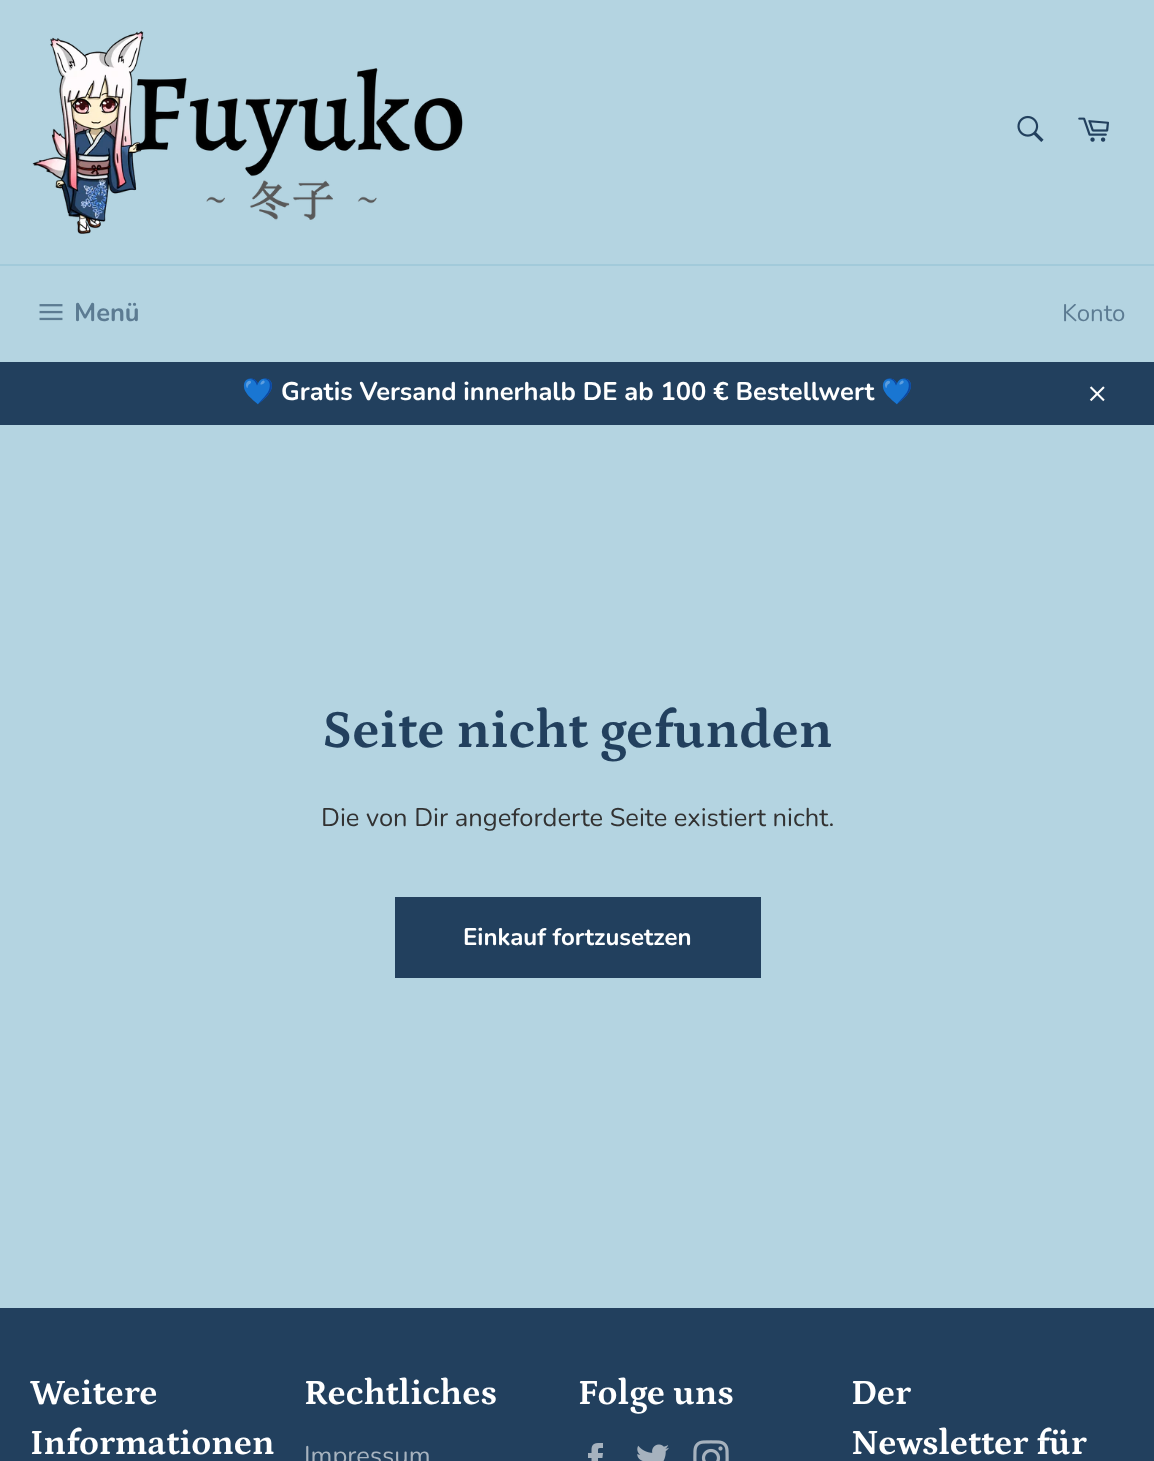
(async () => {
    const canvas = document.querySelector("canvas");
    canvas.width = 1154;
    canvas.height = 1461;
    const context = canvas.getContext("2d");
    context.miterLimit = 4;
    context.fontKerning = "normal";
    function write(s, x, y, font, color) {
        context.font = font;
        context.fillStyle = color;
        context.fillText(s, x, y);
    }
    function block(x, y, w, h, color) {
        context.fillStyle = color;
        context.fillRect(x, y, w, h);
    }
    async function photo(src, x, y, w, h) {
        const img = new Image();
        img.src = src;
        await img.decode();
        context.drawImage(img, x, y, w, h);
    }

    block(0, 0, 1154, 1461, "rgb(180, 212, 225)");
    await photo("media/1.png", 32, 31, 431, 203);
    await photo("media/2.png", 1017, 115, 27, 27);
    await photo("media/3.png", 1078, 117, 31, 25);
    block(0, 264, 1154, 2, "rgb(162, 202, 218)");
    await photo("media/4.png", 39, 304, 24, 17);
    write("Menü", 74, 321, "bold 25.5px Nunito", "rgb(92, 123, 146)");
    write("Konto", 1062, 321, "24px Nunito", "rgb(92, 123, 146)");
    block(0, 362, 1154, 63, "rgb(34, 64, 94)");
    write("💙", 242, 400, "bold 25.5px Noto Color Emoji", "rgb(255, 255, 255)");
    write("Gratis Versand innerhalb DE ab 100 € Bestellwert", 281, 400, "bold 25.5px Nunito", "rgb(255, 255, 255)");
    write("💙", 881, 400, "bold 25.5px Noto Color Emoji", "rgb(255, 255, 255)");
    await photo("media/5.png", 1089, 386, 16, 16);
    write("Seite nicht gefunden", 322, 747, "bold 54px Petrona", "rgb(34, 64, 94)");
    write("Die von Dir angeforderte Seite existiert nicht.", 321, 826, "25.5px Nunito", "rgb(50, 50, 50)");
    block(395, 897, 366, 81, "rgb(34, 64, 94)");
    write("Einkauf fortzusetzen", 463, 945, "bold 24px Nunito", "rgb(255, 255, 255)");
    block(0, 1308, 1154, 153, "rgb(34, 64, 94)");
    write("Weitere", 30, 1404, "bold 36px Petrona", "rgb(255, 255, 255)");
    write("Informationen", 30, 1454, "bold 36px Petrona", "rgb(255, 255, 255)");
    write("Rechtliches", 304, 1404, "bold 36px Petrona", "rgb(255, 255, 255)");
    write("Impressum", 304, 1464, "25.5px Nunito", "rgb(167, 179, 191)");
    write("Folge uns", 578, 1404, "bold 36px Petrona", "rgb(255, 255, 255)");
    await photo("media/6.png", 588, 1443, 15, 18);
    await photo("media/7.png", 637, 1444, 32, 17);
    await photo("media/8.png", 693, 1440, 36, 21);
    write("Der", 851, 1404, "bold 36px Petrona", "rgb(255, 255, 255)");
    write("Newsletter für", 851, 1454, "bold 36px Petrona", "rgb(255, 255, 255)");
})();
